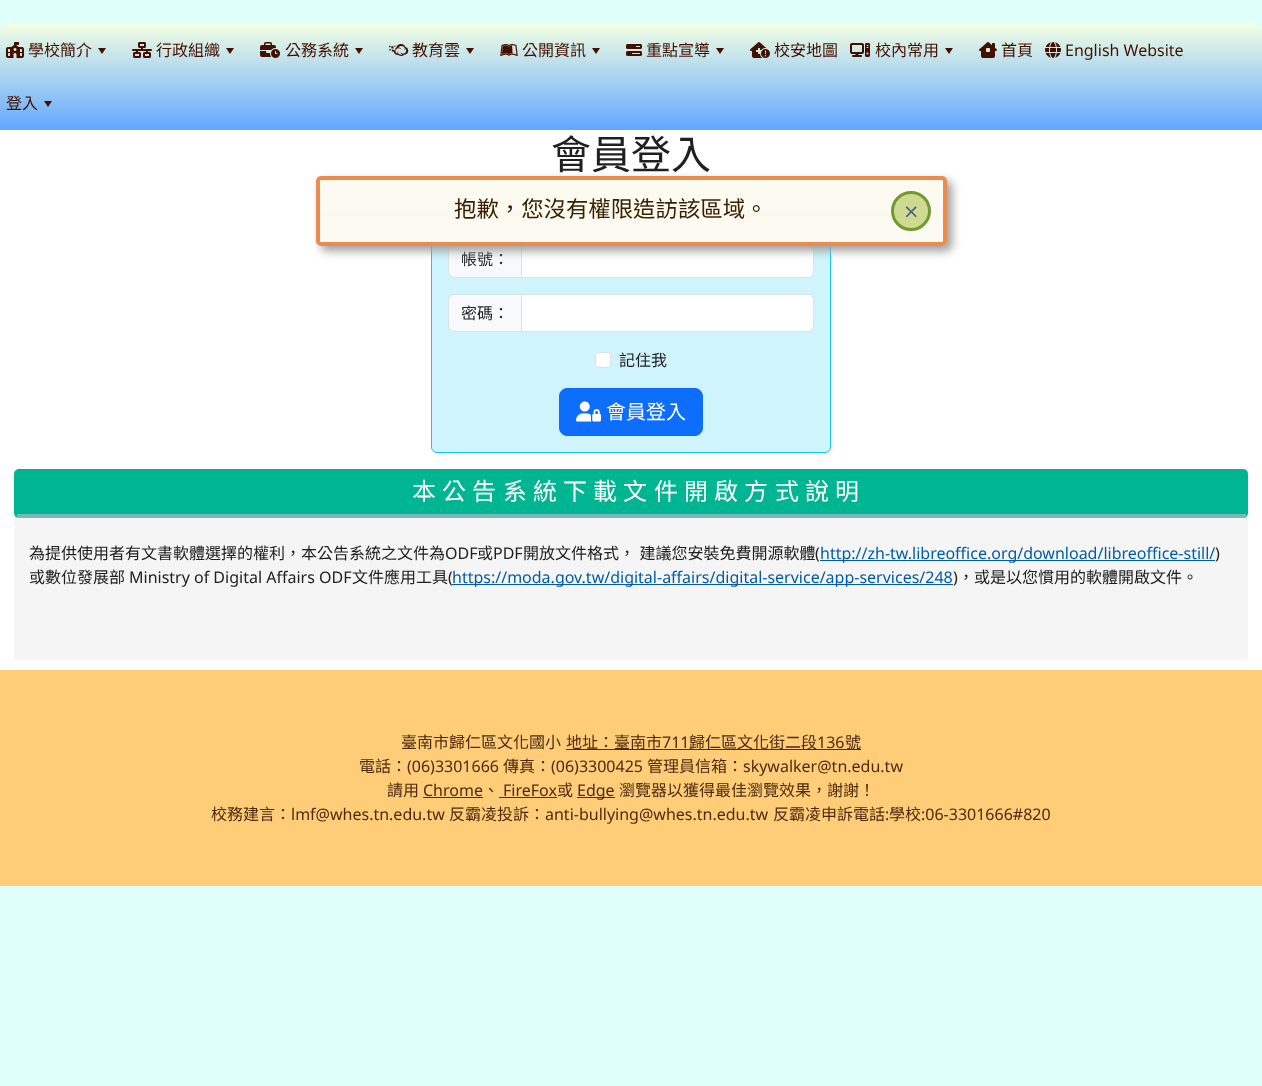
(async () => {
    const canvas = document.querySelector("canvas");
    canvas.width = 1262;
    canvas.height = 1086;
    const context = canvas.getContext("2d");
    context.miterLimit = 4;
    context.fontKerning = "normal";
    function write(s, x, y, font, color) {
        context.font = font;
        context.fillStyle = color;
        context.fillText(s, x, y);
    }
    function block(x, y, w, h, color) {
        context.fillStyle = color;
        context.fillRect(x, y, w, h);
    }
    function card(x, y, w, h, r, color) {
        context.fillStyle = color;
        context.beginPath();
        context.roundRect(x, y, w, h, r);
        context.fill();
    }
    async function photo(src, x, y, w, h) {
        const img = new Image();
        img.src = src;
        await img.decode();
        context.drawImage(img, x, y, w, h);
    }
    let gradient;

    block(0, 0, 1262, 1086, "rgb(223, 255, 251)");
    gradient = context.createLinearGradient(631, 24, 631, 130);
    gradient.addColorStop(0, "rgb(242, 255, 226)");
    gradient.addColorStop(1, "rgb(98, 167, 255)");
    context.fillStyle = gradient;
    context.beginPath();
    context.roundRect(0, 24, 1262, 106, [8, 8, 0, 0]);
    context.fill();
    await photo("media/1.png", 6, 42, 18, 16);
    write("學校簡介", 28, 56, "16px Noto Sans CJK TC", "rgb(67, 16, 0)");
    context.beginPath();
    context.moveTo(98, 48);
    context.lineTo(106, 48);
    context.lineTo(102, 54);
    context.closePath();
    context.fill();
    await photo("media/2.png", 132, 42, 20, 16);
    write("行政組織", 156, 56, "16px Noto Sans CJK TC", "rgb(67, 16, 0)");
    context.beginPath();
    context.moveTo(226, 48);
    context.lineTo(234, 48);
    context.lineTo(230, 54);
    context.closePath();
    context.fill();
    await photo("media/3.png", 260, 42, 20, 16);
    write("公務系統", 285, 56, "16px Noto Sans CJK TC", "rgb(67, 16, 0)");
    context.beginPath();
    context.moveTo(355, 48);
    context.lineTo(363, 48);
    context.lineTo(359, 54);
    context.closePath();
    context.fill();
    await photo("media/4.png", 389, 44, 20, 12);
    write("教育雲", 412, 56, "16px Noto Sans CJK TC", "rgb(67, 16, 0)");
    context.beginPath();
    context.moveTo(466, 48);
    context.lineTo(474, 48);
    context.lineTo(470, 54);
    context.closePath();
    context.fill();
    await photo("media/5.png", 500, 44, 18, 12);
    write("公開資訊", 522, 56, "16px Noto Sans CJK TC", "rgb(67, 16, 0)");
    context.beginPath();
    context.moveTo(592, 48);
    context.lineTo(600, 48);
    context.lineTo(596, 54);
    context.closePath();
    context.fill();
    await photo("media/6.png", 626, 44, 16, 12);
    write("重點宣導", 646, 56, "16px Noto Sans CJK TC", "rgb(67, 16, 0)");
    context.beginPath();
    context.moveTo(716, 48);
    context.lineTo(724, 48);
    context.lineTo(720, 54);
    context.closePath();
    context.fill();
    await photo("media/7.png", 750, 42, 20, 16);
    write("校安地圖", 774, 56, "16px Noto Sans CJK TC", "rgb(67, 16, 0)");
    await photo("media/8.png", 850, 43, 20, 14);
    write("校內常用", 875, 56, "16px Noto Sans CJK TC", "rgb(67, 16, 0)");
    context.beginPath();
    context.moveTo(945, 48);
    context.lineTo(953, 48);
    context.lineTo(949, 54);
    context.closePath();
    context.fill();
    await photo("media/9.png", 979, 42, 18, 16);
    write("首頁", 1001, 56, "16px Noto Sans CJK TC", "rgb(67, 16, 0)");
    await photo("media/10.png", 1045, 42, 16, 16);
    write("English Website", 1065, 56, "16px Noto Sans", "rgb(67, 16, 0)");
    write("登入", 6, 109, "16px Noto Sans CJK TC", "rgb(67, 16, 0)");
    context.beginPath();
    context.moveTo(44, 101);
    context.lineTo(52, 101);
    context.lineTo(48, 107);
    context.closePath();
    context.fill();
    block(0, 130, 1262, 540, "rgb(255, 255, 255)");
    write("會員登入", 551, 169, "40px Noto Sans CJK TC", "rgb(32, 32, 32)");
    context.fillStyle = "rgb(207, 244, 252)";
    context.beginPath();
    context.roundRect(431.5, 194.5, 399, 258, 5.5);
    context.fill();
    context.strokeStyle = "rgb(13, 202, 240)";
    context.stroke();
    context.fillStyle = "rgb(248, 249, 250)";
    context.beginPath();
    context.roundRect(448.5, 240.5, 73, 37, [5.5, 0, 0, 5.5]);
    context.fill();
    context.strokeStyle = "rgb(222, 226, 230)";
    context.stroke();
    write("帳號：", 461, 265, "16px Noto Sans CJK TC", "rgb(33, 37, 41)");
    context.fillStyle = "rgb(255, 255, 255)";
    context.beginPath();
    context.roundRect(521.5, 240.5, 292, 37, [0, 5.5, 5.5, 0]);
    context.fill();
    context.stroke();
    context.fillStyle = "rgb(248, 249, 250)";
    context.beginPath();
    context.roundRect(448.5, 294.5, 73, 37, [5.5, 0, 0, 5.5]);
    context.fill();
    context.stroke();
    write("密碼：", 461, 319, "16px Noto Sans CJK TC", "rgb(33, 37, 41)");
    context.fillStyle = "rgb(255, 255, 255)";
    context.beginPath();
    context.roundRect(521.5, 294.5, 292, 37, [0, 5.5, 5.5, 0]);
    context.fill();
    context.stroke();
    context.beginPath();
    context.roundRect(595.5, 352.5, 15, 15, 3.5);
    context.fill();
    context.stroke();
    write("記住我", 619, 366, "16px Noto Sans CJK TC", "rgb(32, 32, 32)");
    context.fillStyle = "rgb(13, 110, 253)";
    context.beginPath();
    context.roundRect(559.5, 388.5, 143, 47, 7.5);
    context.fill();
    context.strokeStyle = "rgb(13, 110, 253)";
    context.stroke();
    await photo("media/11.png", 576, 401, 25, 21);
    write("會員登入", 606, 419, "20px Noto Sans CJK TC", "rgb(255, 255, 255)");
    card(14, 469, 1234, 191, 2, "rgb(245, 245, 245)");
    card(14, 469, 1234, 49, 5, "rgb(0, 182, 146)");
    block(17, 514, 1229, 4, "rgb(124, 182, 183)");
    write("本", 412, 500, "24px Noto Sans CJK TC", "rgb(255, 255, 255)");
    write("公", 442, 500, "24px Noto Sans CJK TC", "rgb(255, 255, 255)");
    write("告", 472, 500, "24px Noto Sans CJK TC", "rgb(255, 255, 255)");
    write("系", 503, 500, "24px Noto Sans CJK TC", "rgb(255, 255, 255)");
    write("統", 533, 500, "24px Noto Sans CJK TC", "rgb(255, 255, 255)");
    write("下", 563, 500, "24px Noto Sans CJK TC", "rgb(255, 255, 255)");
    write("載", 593, 500, "24px Noto Sans CJK TC", "rgb(255, 255, 255)");
    write("文", 623, 500, "24px Noto Sans CJK TC", "rgb(255, 255, 255)");
    write("件", 654, 500, "24px Noto Sans CJK TC", "rgb(255, 255, 255)");
    write("開", 684, 500, "24px Noto Sans CJK TC", "rgb(255, 255, 255)");
    write("啟", 714, 500, "24px Noto Sans CJK TC", "rgb(255, 255, 255)");
    write("方", 744, 500, "24px Noto Sans CJK TC", "rgb(255, 255, 255)");
    write("式", 775, 500, "24px Noto Sans CJK TC", "rgb(255, 255, 255)");
    write("說", 805, 500, "24px Noto Sans CJK TC", "rgb(255, 255, 255)");
    write("明", 835, 500, "24px Noto Sans CJK TC", "rgb(255, 255, 255)");
    write("為提供使用者有文書軟體選擇的權利，本公告系統之文件為", 29, 559, "16px Noto Sans CJK TC", "rgb(32, 32, 32)");
    write("ODF", 445, 559, "16px Noto Sans", "rgb(32, 32, 32)");
    write("或", 477, 559, "16px Noto Sans CJK TC", "rgb(32, 32, 32)");
    write("PDF", 493, 559, "16px Noto Sans", "rgb(32, 32, 32)");
    context.wordSpacing = "1px";
    write("開放文件格式， 建議您安裝免費開源軟體", 523, 559, "16px Noto Sans CJK TC", "rgb(32, 32, 32)");
    context.wordSpacing = "0px";
    write("(", 815, 559, "16px Noto Sans", "rgb(32, 32, 32)");
    block(820, 560, 395, 1, "rgb(0, 92, 168)");
    write("http://zh-tw.libreoffice.org/download/libreoffice-still/", 820, 559, "16px Noto Sans", "rgb(0, 92, 168)");
    write(")", 1215, 559, "16px Noto Sans", "rgb(32, 32, 32)");
    write("或數位發展部", 29, 583, "16px Noto Sans CJK TC", "rgb(32, 32, 32)");
    write("Ministry of Digital Affairs ODF", 129, 583, "16px Noto Sans", "rgb(32, 32, 32)");
    write("文件應用工具", 352, 583, "16px Noto Sans CJK TC", "rgb(32, 32, 32)");
    write("(", 448, 583, "16px Noto Sans", "rgb(32, 32, 32)");
    block(452, 584, 501, 1, "rgb(0, 92, 168)");
    write("https://moda.gov.tw/digital-affairs/digital-service/app-services/248", 452, 583, "16px Noto Sans", "rgb(0, 92, 168)");
    write(")", 953, 583, "16px Noto Sans", "rgb(32, 32, 32)");
    write("，或是以您慣用的軟體開啟文件。", 958, 583, "16px Noto Sans CJK TC", "rgb(32, 32, 32)");
    block(0, 670, 1262, 216, "rgb(255, 205, 119)");
    write("臺南市歸仁區文化國小", 401, 748, "16px Noto Sans CJK TC", "rgb(76, 43, 17)");
    block(566, 749, 295, 1, "rgb(76, 43, 17)");
    write("地址：臺南市", 566, 748, "16px Noto Sans CJK TC", "rgb(76, 43, 17)");
    write("711", 662, 748, "16px Noto Sans", "rgb(76, 43, 17)");
    write("歸仁區文化街二段", 689, 748, "16px Noto Sans CJK TC", "rgb(76, 43, 17)");
    write("136", 817, 748, "16px Noto Sans", "rgb(76, 43, 17)");
    write("號", 845, 748, "16px Noto Sans CJK TC", "rgb(76, 43, 17)");
    write("電話：", 359, 772, "16px Noto Sans CJK TC", "rgb(76, 43, 17)");
    write("(06)3301666", 407, 772, "16px Noto Sans", "rgb(76, 43, 17)");
    write("傳真：", 503, 772, "16px Noto Sans CJK TC", "rgb(76, 43, 17)");
    write("(06)3300425", 551, 772, "16px Noto Sans", "rgb(76, 43, 17)");
    write("管理員信箱：", 647, 772, "16px Noto Sans CJK TC", "rgb(76, 43, 17)");
    write("skywalker@tn.edu.tw", 743, 772, "16px Noto Sans", "rgb(76, 43, 17)");
    write("請用", 387, 796, "16px Noto Sans CJK TC", "rgb(76, 43, 17)");
    write("Chrome", 423, 796, "16px Noto Sans", "rgb(76, 43, 17)");
    block(423, 797, 60, 1, "rgb(76, 43, 17)");
    write("、", 483, 796, "16px Noto Sans CJK TC", "rgb(76, 43, 17)");
    write("FireFox", 503, 796, "16px Noto Sans", "rgb(76, 43, 17)");
    block(499, 797, 58, 1, "rgb(76, 43, 17)");
    write("或", 557, 796, "16px Noto Sans CJK TC", "rgb(76, 43, 17)");
    block(577, 797, 38, 1, "rgb(76, 43, 17)");
    write("Edge", 577, 796, "16px Noto Sans", "rgb(76, 43, 17)");
    write("瀏覽器以獲得最佳瀏覽效果，謝謝！", 619, 796, "16px Noto Sans CJK TC", "rgb(76, 43, 17)");
    write("校務建言：", 211, 820, "16px Noto Sans CJK TC", "rgb(76, 43, 17)");
    write("lmf@whes.tn.edu.tw", 291, 820, "16px Noto Sans", "rgb(76, 43, 17)");
    write("反霸凌投訴：", 449, 820, "16px Noto Sans CJK TC", "rgb(76, 43, 17)");
    write("anti-bullying@whes.tn.edu.tw", 545, 820, "16px Noto Sans", "rgb(76, 43, 17)");
    write("反霸凌申訴電話", 773, 820, "16px Noto Sans CJK TC", "rgb(76, 43, 17)");
    write(":", 885, 820, "16px Noto Sans", "rgb(76, 43, 17)");
    write("學校", 889, 820, "16px Noto Sans CJK TC", "rgb(76, 43, 17)");
    write(":06-3301666#820", 921, 820, "16px Noto Sans", "rgb(76, 43, 17)");
    context.fillStyle = "rgb(158, 158, 158)";
    context.filter = "blur(5px)";
    context.beginPath();
    context.roundRect(321, 181, 631, 70, 5);
    context.fill();
    context.filter = "none";
    await photo("media/12.png", 316, 176, 631, 70);
    context.beginPath();
    context.roundRect(318, 178, 627, 66, 3);
    context.strokeStyle = "rgb(233, 140, 77)";
    context.lineWidth = 4;
    context.stroke();
    write("抱歉，您沒有權限造訪該區域。", 454, 217, "100 22.4px Noto Sans TC", "rgb(59, 32, 1)");
    context.fillStyle = "rgb(206, 218, 143)";
    context.beginPath();
    context.arc(911, 211, 18.5, 0, Math.PI * 2);
    context.fill();
    context.strokeStyle = "rgb(114, 153, 50)";
    context.lineWidth = 3;
    context.stroke();
    write("×", 903, 218, "bold 16px Noto Sans TC", "rgb(64, 90, 128)");
})();
